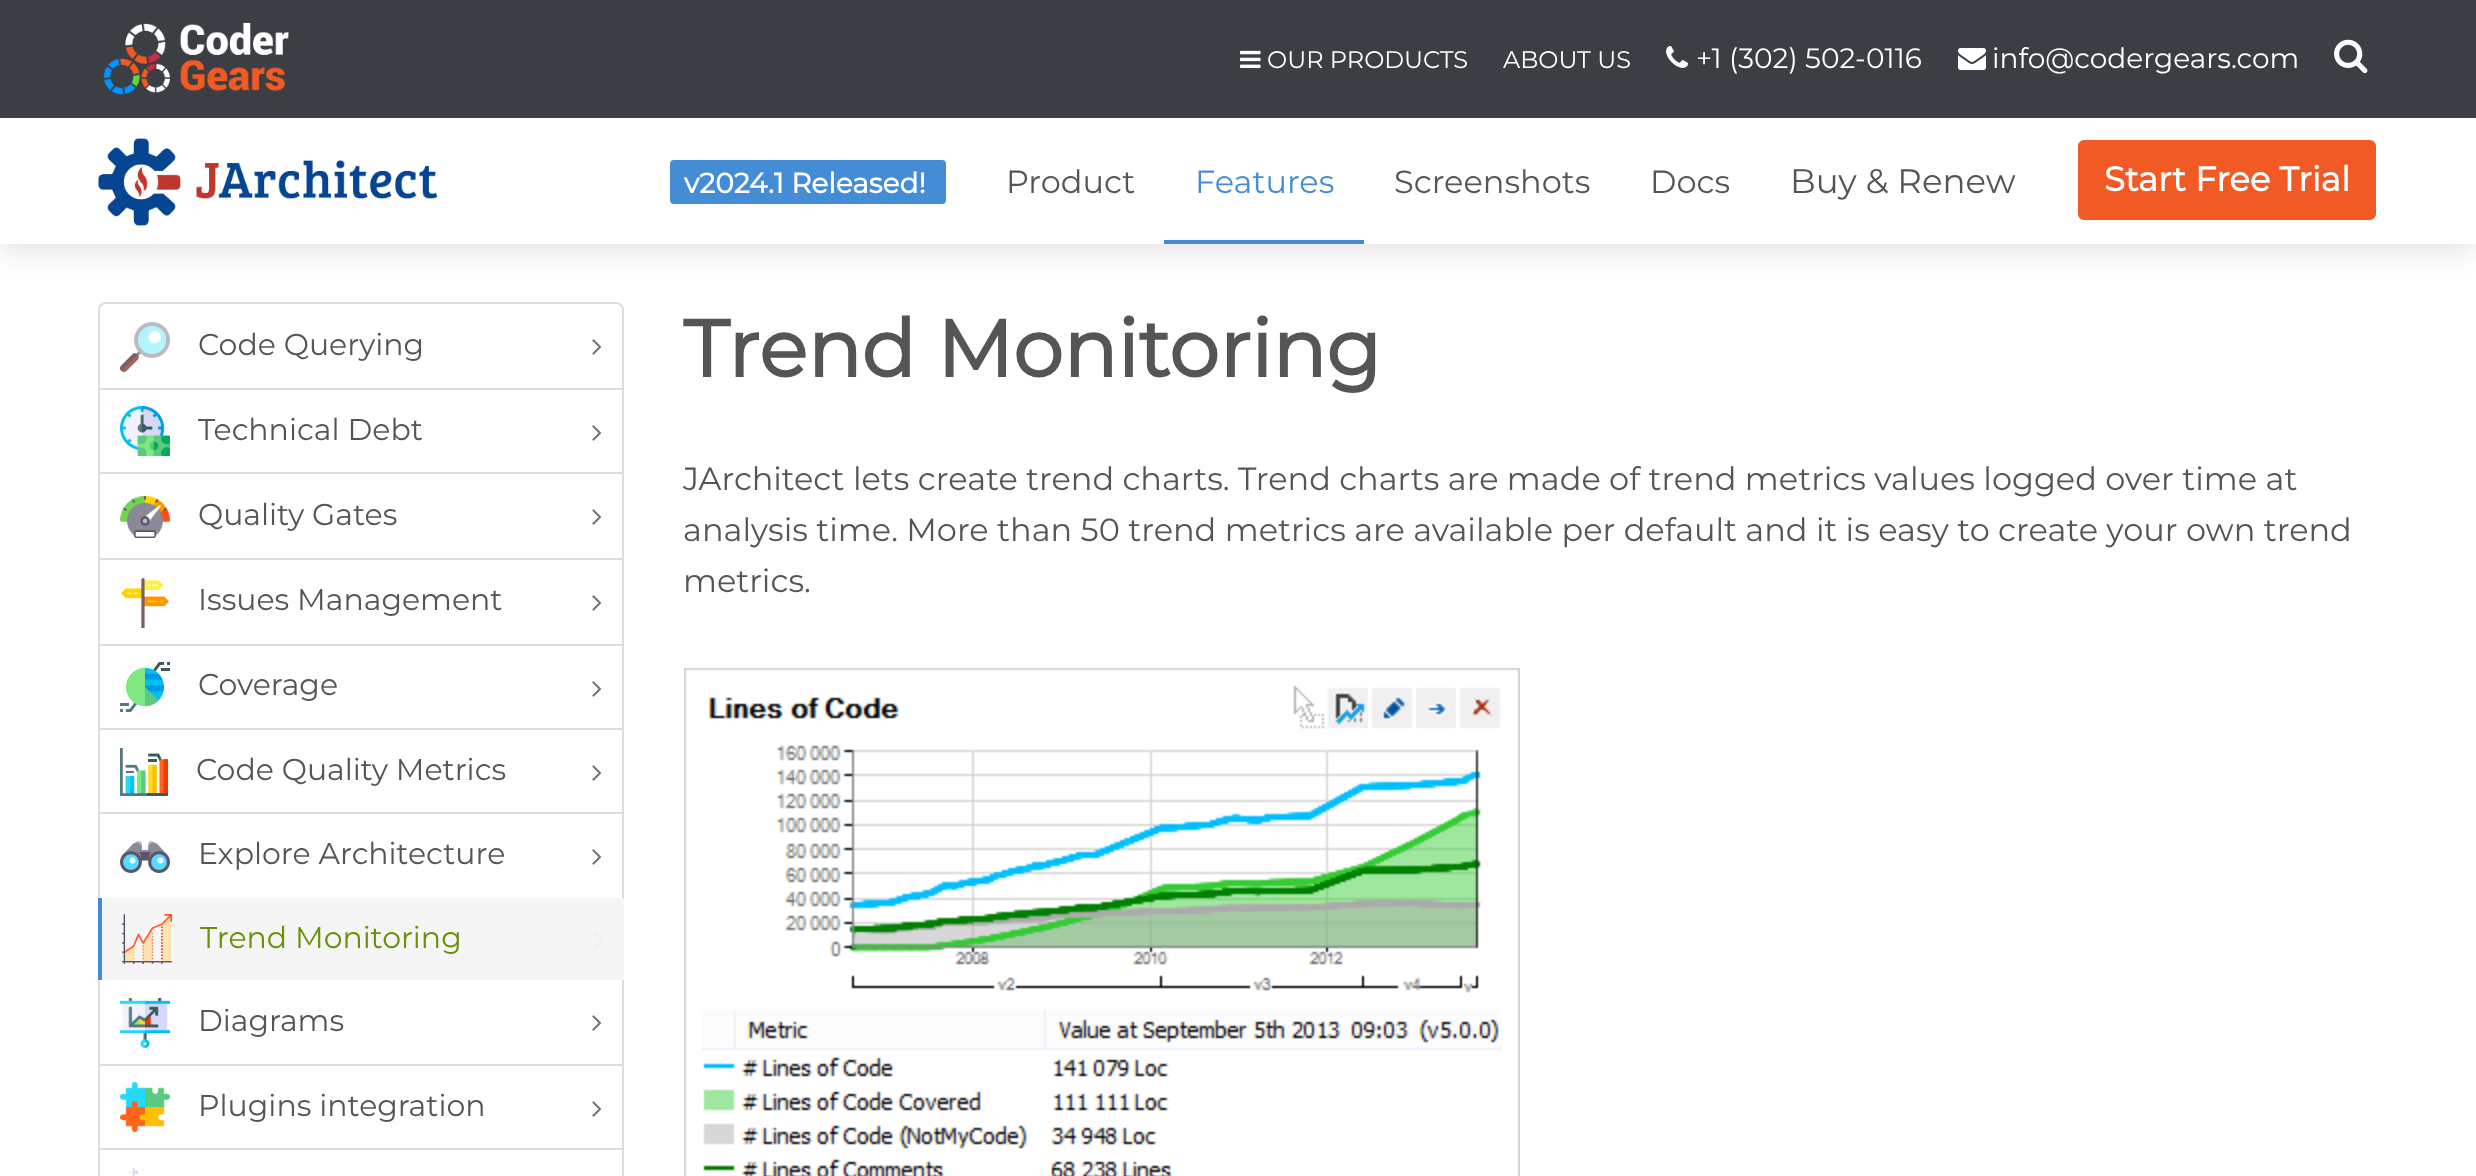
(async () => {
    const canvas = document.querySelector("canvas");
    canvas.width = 2476;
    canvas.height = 1176;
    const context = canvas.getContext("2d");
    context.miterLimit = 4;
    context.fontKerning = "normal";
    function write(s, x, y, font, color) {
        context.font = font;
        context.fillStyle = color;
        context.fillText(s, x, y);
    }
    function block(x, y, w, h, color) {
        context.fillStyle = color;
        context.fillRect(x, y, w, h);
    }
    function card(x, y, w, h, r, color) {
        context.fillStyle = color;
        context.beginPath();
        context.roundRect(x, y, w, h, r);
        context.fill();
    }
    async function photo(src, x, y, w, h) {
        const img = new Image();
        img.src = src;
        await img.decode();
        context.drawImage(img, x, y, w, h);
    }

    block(0, 0, 2476, 1176, "rgb(255, 255, 255)");
    context.fillStyle = "rgba(0, 0, 0, 0.1)";
    context.filter = "blur(14px)";
    context.beginPath();
    context.rect(0, 126, 2476, 126);
    context.fill();
    context.filter = "none";
    block(0, 0, 2476, 118, "rgb(59, 62, 67)");
    await photo("media/1.png", 103, 22, 186, 73);
    await photo("media/2.png", 1240, 50, 21, 18);
    write("OUR PRODUCTS", 1267, 68, "100 24px Montserrat", "rgb(255, 255, 255)");
    write("ABOUT US", 1503, 68, "100 24px Montserrat", "rgb(255, 255, 255)");
    await photo("media/3.png", 1666, 46, 22, 22);
    write("+1 (302) 502-0116", 1696, 68, "100 28px Montserrat", "rgb(255, 255, 255)");
    await photo("media/4.png", 1958, 48, 28, 22);
    write("info@codergears.com", 1992, 68, "100 28px Montserrat", "rgb(255, 255, 255)");
    await photo("media/5.png", 2334, 39, 34, 35);
    block(0, 118, 2476, 126, "rgb(255, 255, 255)");
    await photo("media/6.png", 98, 138, 340, 88);
    card(670, 160, 276, 44, 4, "rgb(68, 141, 214)");
    write("v2024.1 Released!", 684, 193, "bold 28px Montserrat", "rgb(255, 255, 255)");
    write("Product", 1006, 193, "100 32px Montserrat", "rgb(85, 85, 85)");
    block(1164, 240, 200, 4, "rgb(68, 141, 214)");
    write("Features", 1195, 193, "100 32px Montserrat", "rgb(68, 141, 214)");
    write("Screenshots", 1394, 193, "100 32px Montserrat", "rgb(85, 85, 85)");
    write("Docs", 1650, 193, "100 32px Montserrat", "rgb(85, 85, 85)");
    write("Buy & Renew", 1790, 193, "100 34px Montserrat", "rgb(85, 85, 85)");
    context.fillStyle = "rgb(241, 90, 36)";
    context.beginPath();
    context.roundRect(2077, 139, 300, 82, 7);
    context.fill();
    context.strokeStyle = "rgb(255, 255, 255)";
    context.lineWidth = 2;
    context.stroke();
    write("Start Free Trial", 2104, 191, "bold 34px Montserrat", "rgb(255, 255, 255)");
    context.beginPath();
    context.roundRect(99, 303, 524, 86, [7, 7, 0, 0]);
    context.strokeStyle = "rgb(221, 221, 221)";
    context.stroke();
    await photo("media/7.png", 120, 322, 50, 50);
    write("Code Querying", 198, 355, "100 30px Montserrat", "rgb(85, 85, 85)");
    await photo("media/8.png", 592, 339, 10, 16);
    context.strokeRect(99, 389, 524, 84);
    await photo("media/9.png", 120, 406, 50, 50);
    write("Technical Debt", 198, 440, "100 30px Montserrat", "rgb(85, 85, 85)");
    await photo("media/8.png", 592, 425, 10, 16);
    context.strokeRect(99, 473, 524, 86);
    await photo("media/10.png", 120, 496, 50, 42);
    write("Quality Gates", 198, 525, "100 30px Montserrat", "rgb(85, 85, 85)");
    await photo("media/8.png", 592, 509, 10, 16);
    context.strokeRect(99, 559, 524, 86);
    await photo("media/11.png", 121, 578, 48, 50);
    write("Issues Management", 198, 610, "100 30px Montserrat", "rgb(85, 85, 85)");
    await photo("media/8.png", 592, 595, 10, 16);
    context.strokeRect(99, 645, 524, 84);
    await photo("media/12.png", 120, 662, 50, 50);
    write("Coverage", 198, 695, "100 30px Montserrat", "rgb(85, 85, 85)");
    await photo("media/8.png", 592, 681, 10, 16);
    context.strokeRect(99, 729, 524, 84);
    await photo("media/13.png", 120, 748, 48, 48);
    write("Code Quality Metrics", 196, 780, "100 30px Montserrat", "rgb(85, 85, 85)");
    await photo("media/8.png", 592, 765, 10, 16);
    context.strokeRect(99, 813, 524, 86);
    await photo("media/14.png", 120, 841, 50, 32);
    write("Explore Architecture", 198, 864, "100 30px Montserrat", "rgb(85, 85, 85)");
    await photo("media/8.png", 592, 849, 10, 16);
    context.strokeRect(99, 979, 524, 86);
    block(102, 898, 522, 82, "rgb(245, 245, 245)");
    block(98, 898, 4, 82, "rgb(68, 141, 214)");
    await photo("media/15.png", 122, 914, 50, 50);
    write("Trend Monitoring", 200, 948, "100 30px Montserrat", "rgb(102, 146, 10)");
    await photo("media/16.png", 594, 933, 9, 16);
    await photo("media/17.png", 120, 998, 50, 50);
    write("Diagrams", 198, 1031, "100 30px Montserrat", "rgb(85, 85, 85)");
    await photo("media/8.png", 592, 1015, 10, 16);
    context.strokeRect(99, 1065, 524, 84);
    await photo("media/18.png", 120, 1082, 50, 50);
    write("Plugins integration", 198, 1116, "100 30px Montserrat", "rgb(85, 85, 85)");
    await photo("media/8.png", 592, 1101, 10, 16);
    context.strokeRect(99, 1149, 524, 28);
    await photo("media/19.png", 129, 1168, 9, 8);
    write("Trend Monitoring", 683, 377, "bold 80px Montserrat", "rgb(85, 85, 85)");
    write("JArchitect lets create trend charts. Trend charts are made of trend metrics values logged over time at", 683, 490, "100 32px Montserrat", "rgb(85, 85, 85)");
    write("analysis time. More than 50 trend metrics are available per default and it is easy to create your own trend", 683, 541, "100 32px Montserrat", "rgb(85, 85, 85)");
    write("metrics.", 683, 592, "100 32px Montserrat", "rgb(85, 85, 85)");
    await photo("media/20.png", 684, 668, 836, 508);
})();
